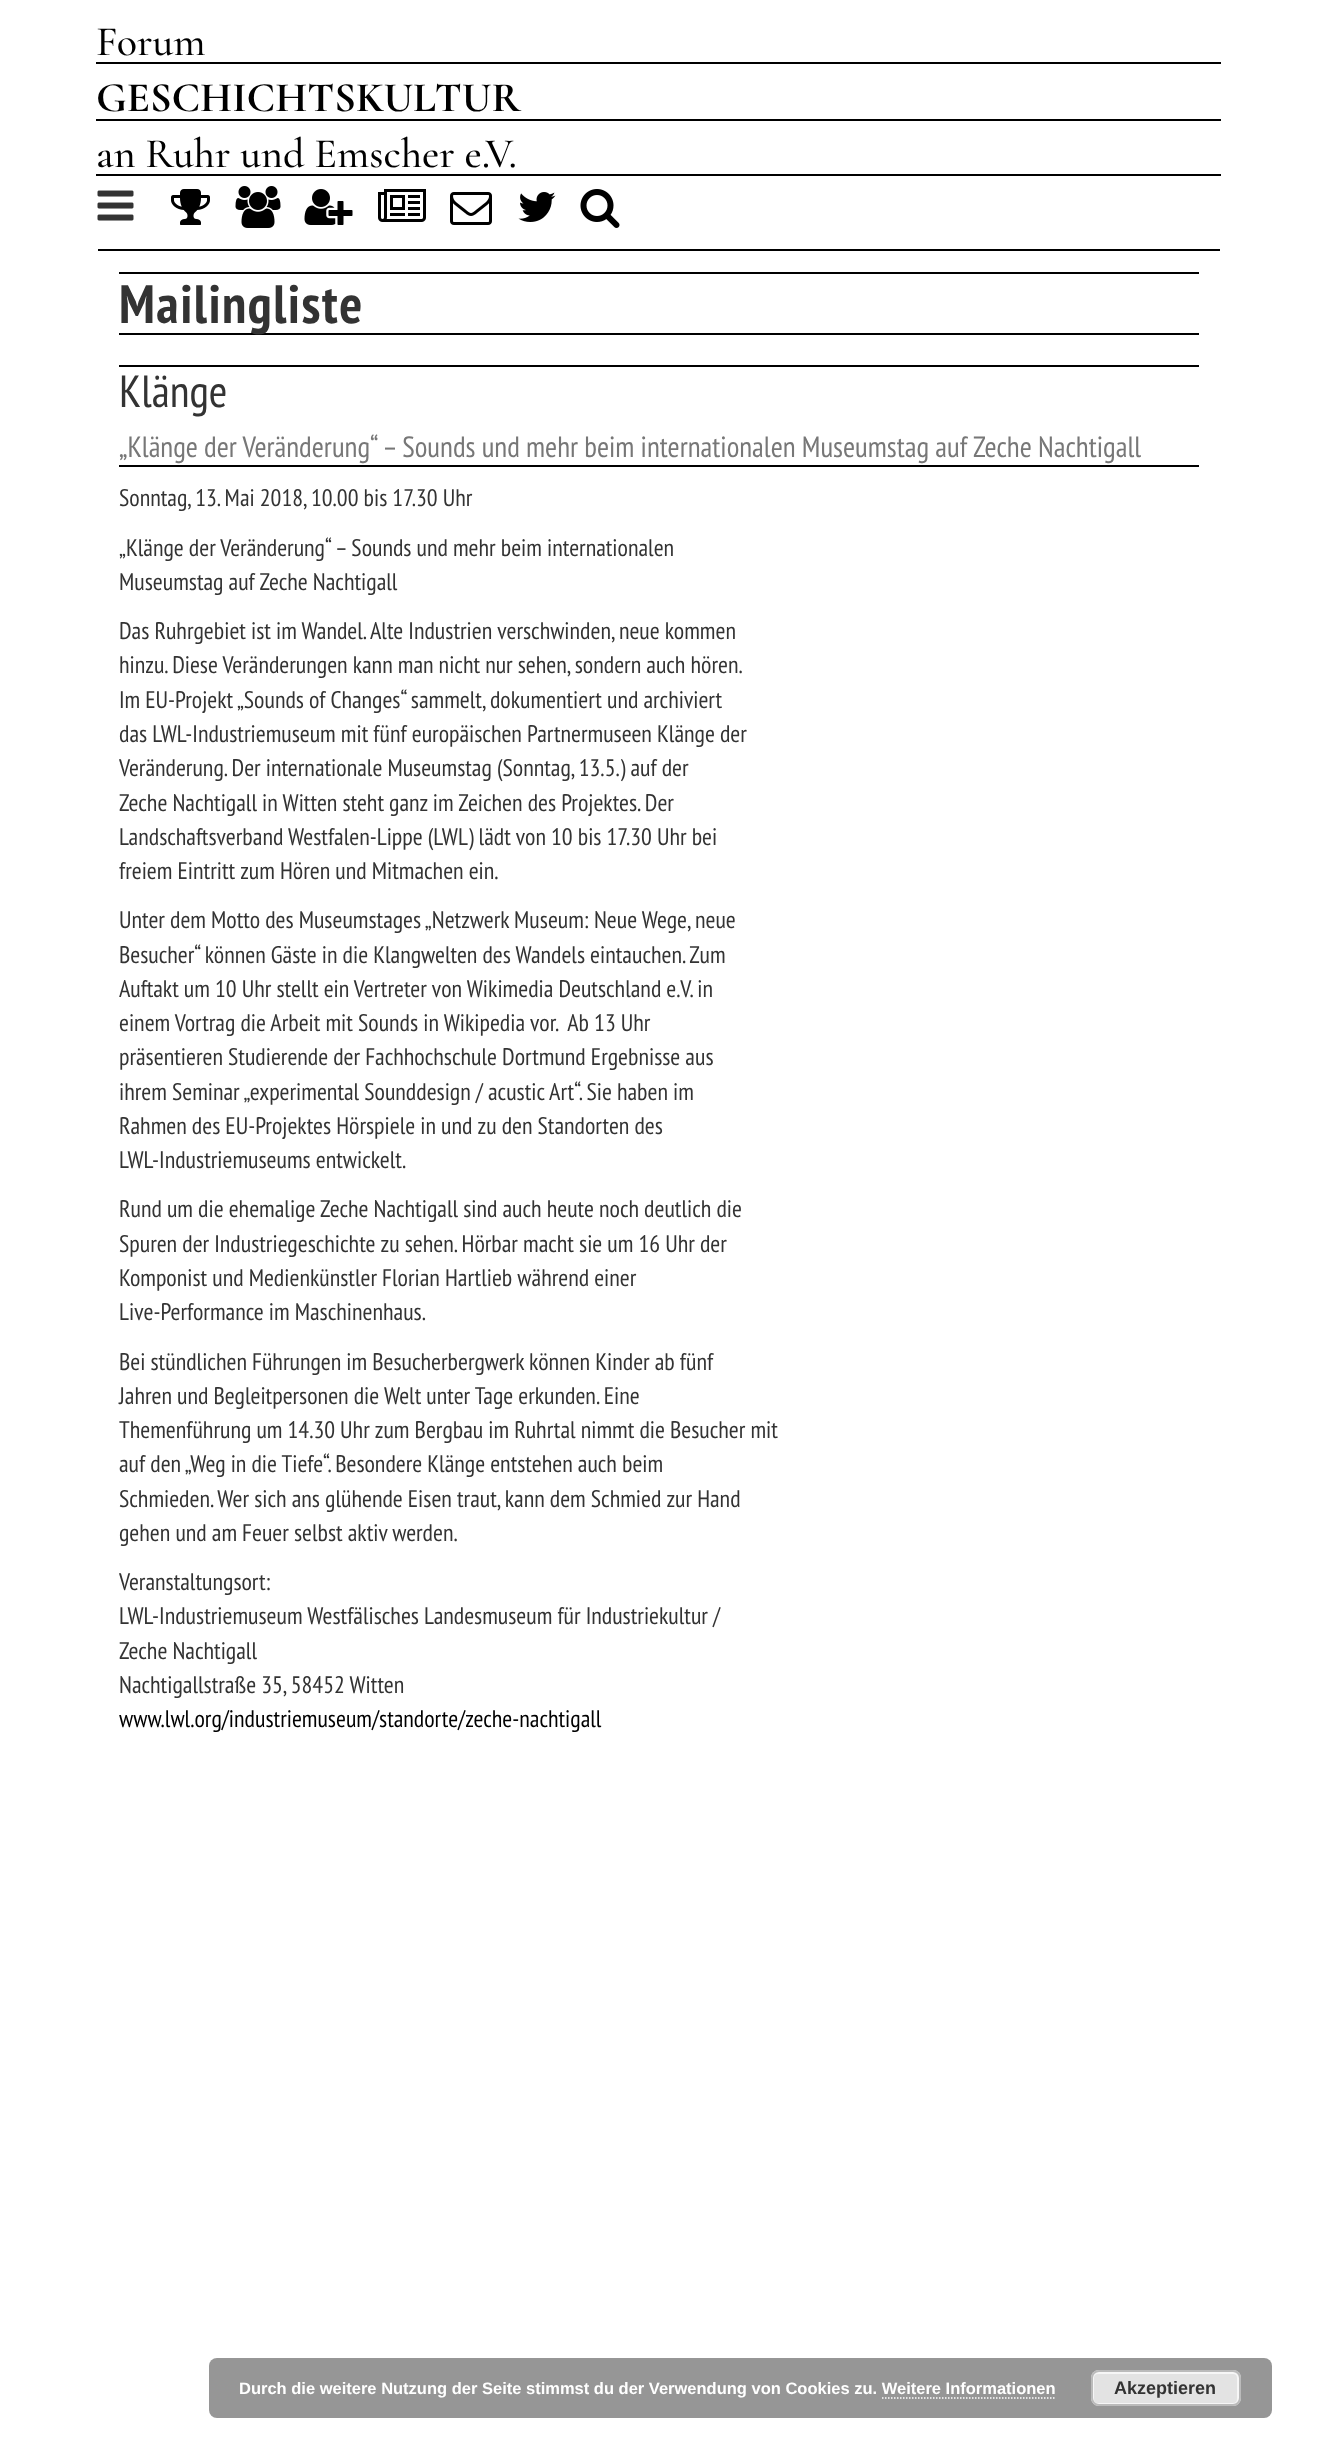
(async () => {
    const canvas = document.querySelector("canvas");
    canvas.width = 1317;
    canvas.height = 2462;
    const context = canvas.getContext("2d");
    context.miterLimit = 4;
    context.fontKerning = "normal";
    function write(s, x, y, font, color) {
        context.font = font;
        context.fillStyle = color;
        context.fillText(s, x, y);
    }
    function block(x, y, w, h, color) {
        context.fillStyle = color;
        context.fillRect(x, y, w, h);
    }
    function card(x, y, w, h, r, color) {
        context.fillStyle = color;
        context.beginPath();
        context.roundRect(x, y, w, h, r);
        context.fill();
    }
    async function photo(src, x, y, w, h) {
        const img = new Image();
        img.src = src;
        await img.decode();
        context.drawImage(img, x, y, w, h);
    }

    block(0, 0, 1317, 2462, "rgb(255, 255, 255)");
    block(96, 62, 1125, 2, "rgb(0, 0, 0)");
    write("Forum", 96, 55, "500 42px Cormorant Garamond", "rgb(0, 0, 0)");
    block(96, 119, 1125, 2, "rgb(0, 0, 0)");
    write("GESCHICHTSKULTUR", 96, 111, "bold 42px Cormorant Garamond", "rgb(0, 0, 0)");
    block(96, 174, 1125, 2, "rgb(0, 0, 0)");
    write("an Ruhr und Emscher e.V.", 96, 167, "500 42px Cormorant Garamond", "rgb(0, 0, 0)");
    block(98, 249, 1122, 2, "rgb(0, 0, 0)");
    await photo("media/1.png", 97, 190, 37, 31);
    await photo("media/2.png", 171, 189, 39, 36);
    await photo("media/3.png", 235, 186, 46, 42);
    await photo("media/4.png", 304, 189, 49, 36);
    await photo("media/5.png", 378, 189, 48, 33);
    await photo("media/6.png", 450, 192, 42, 33);
    await photo("media/7.png", 518, 192, 38, 30);
    await photo("media/8.png", 580, 189, 40, 39);
    block(119, 272, 1080, 2, "rgb(0, 0, 0)");
    block(119, 333, 1080, 2, "rgb(0, 0, 0)");
    context.letterSpacing = "1.5px";
    write("Mailingliste", 119, 323, "bold 54px PT Sans Narrow", "rgb(51, 51, 51)");
    block(119, 365, 1080, 2, "rgb(0, 0, 0)");
    block(119, 465, 1080, 2, "rgb(0, 0, 0)");
    context.letterSpacing = "0px";
    write("Klänge", 119, 407, "45px PT Sans Narrow", "rgb(51, 51, 51)");
    write("„Klänge der Veränderung“ – Sounds und mehr beim internationalen Museumstag auf Zeche Nachtigall", 119, 457, "29.25px PT Sans Narrow", "rgb(119, 119, 119)");
    write("Sonntag, 13. Mai 2018, 10.00 bis 17.30 Uhr", 119, 506, "24px PT Sans Narrow", "rgb(51, 51, 51)");
    write("„Klänge der Veränderung“ – Sounds und mehr beim internationalen", 119, 556, "24px PT Sans Narrow", "rgb(51, 51, 51)");
    write("Museumstag auf Zeche Nachtigall", 119, 590, "24px PT Sans Narrow", "rgb(51, 51, 51)");
    write("Das Ruhrgebiet ist im Wandel. Alte Industrien verschwinden, neue kommen", 119, 639, "24px PT Sans Narrow", "rgb(51, 51, 51)");
    write("hinzu. Diese Veränderungen kann man nicht nur sehen, sondern auch hören.", 119, 673, "24px PT Sans Narrow", "rgb(51, 51, 51)");
    write("Im EU-Projekt „Sounds of Changes“ sammelt, dokumentiert und archiviert", 119, 708, "24px PT Sans Narrow", "rgb(51, 51, 51)");
    write("das LWL-Industriemuseum mit fünf europäischen Partnermuseen Klänge der", 119, 742, "24px PT Sans Narrow", "rgb(51, 51, 51)");
    write("Veränderung. Der internationale Museumstag (Sonntag, 13.5.) auf der", 119, 776, "24px PT Sans Narrow", "rgb(51, 51, 51)");
    write("Zeche Nachtigall in Witten steht ganz im Zeichen des Projektes. Der", 119, 811, "24px PT Sans Narrow", "rgb(51, 51, 51)");
    write("Landschaftsverband Westfalen-Lippe (LWL) lädt von 10 bis 17.30 Uhr bei", 119, 845, "24px PT Sans Narrow", "rgb(51, 51, 51)");
    write("freiem Eintritt zum Hören und Mitmachen ein.", 119, 879, "24px PT Sans Narrow", "rgb(51, 51, 51)");
    write("Unter dem Motto des Museumstages „Netzwerk Museum: Neue Wege, neue", 119, 928, "24px PT Sans Narrow", "rgb(51, 51, 51)");
    write("Besucher“ können Gäste in die Klangwelten des Wandels eintauchen. Zum", 119, 963, "24px PT Sans Narrow", "rgb(51, 51, 51)");
    write("Auftakt um 10 Uhr stellt ein Vertreter von Wikimedia Deutschland e.V. in", 119, 997, "24px PT Sans Narrow", "rgb(51, 51, 51)");
    write("einem Vortrag die Arbeit mit Sounds in Wikipedia vor.  Ab 13 Uhr", 119, 1031, "24px PT Sans Narrow", "rgb(51, 51, 51)");
    write("präsentieren Studierende der Fachhochschule Dortmund Ergebnisse aus", 119, 1065, "24px PT Sans Narrow", "rgb(51, 51, 51)");
    write("ihrem Seminar „experimental Sounddesign / acustic Art“. Sie haben im", 119, 1100, "24px PT Sans Narrow", "rgb(51, 51, 51)");
    write("Rahmen des EU-Projektes Hörspiele in und zu den Standorten des", 119, 1134, "24px PT Sans Narrow", "rgb(51, 51, 51)");
    write("LWL-Industriemuseums entwickelt.", 119, 1168, "24px PT Sans Narrow", "rgb(51, 51, 51)");
    write("Rund um die ehemalige Zeche Nachtigall sind auch heute noch deutlich die", 119, 1217, "24px PT Sans Narrow", "rgb(51, 51, 51)");
    write("Spuren der Industriegeschichte zu sehen. Hörbar macht sie um 16 Uhr der", 119, 1252, "24px PT Sans Narrow", "rgb(51, 51, 51)");
    write("Komponist und Medienkünstler Florian Hartlieb während einer", 119, 1286, "24px PT Sans Narrow", "rgb(51, 51, 51)");
    write("Live-Performance im Maschinenhaus.", 119, 1320, "24px PT Sans Narrow", "rgb(51, 51, 51)");
    write("Bei stündlichen Führungen im Besucherbergwerk können Kinder ab fünf", 119, 1370, "24px PT Sans Narrow", "rgb(51, 51, 51)");
    write("Jahren und Begleitpersonen die Welt unter Tage erkunden. Eine", 119, 1404, "24px PT Sans Narrow", "rgb(51, 51, 51)");
    write("Themenführung um 14.30 Uhr zum Bergbau im Ruhrtal nimmt die Besucher mit", 119, 1438, "24px PT Sans Narrow", "rgb(51, 51, 51)");
    write("auf den „Weg in die Tiefe“. Besondere Klänge entstehen auch beim", 119, 1472, "24px PT Sans Narrow", "rgb(51, 51, 51)");
    write("Schmieden. Wer sich ans glühende Eisen traut, kann dem Schmied zur Hand", 119, 1507, "24px PT Sans Narrow", "rgb(51, 51, 51)");
    write("gehen und am Feuer selbst aktiv werden.", 119, 1541, "24px PT Sans Narrow", "rgb(51, 51, 51)");
    write("Veranstaltungsort:", 119, 1590, "24px PT Sans Narrow", "rgb(51, 51, 51)");
    write("LWL-Industriemuseum Westfälisches Landesmuseum für Industriekultur /", 119, 1624, "24px PT Sans Narrow", "rgb(51, 51, 51)");
    write("Zeche Nachtigall", 119, 1659, "24px PT Sans Narrow", "rgb(51, 51, 51)");
    write("Nachtigallstraße 35, 58452 Witten", 119, 1693, "24px PT Sans Narrow", "rgb(51, 51, 51)");
    write("www.lwl.org/industriemuseum/standorte/zeche-nachtigall", 119, 1727, "24px PT Sans Narrow", "rgb(0, 0, 0)");
    card(209, 2358, 1063, 60, 8, "rgb(150, 150, 150)");
    write("Durch die weitere Nutzung der Seite stimmst du der Verwendung von Cookies zu. Weitere Informationen", 239, 2394, "bold 16.5px Liberation Sans", "rgb(255, 255, 255)");
    card(1091, 2370, 150, 36, 8, "rgb(227, 227, 227)");
    context.beginPath();
    context.roundRect(1093, 2373, 145, 31, 5);
    context.strokeStyle = "rgb(246, 246, 246)";
    context.lineWidth = 2;
    context.stroke();
    context.beginPath();
    context.roundRect(1092, 2371, 148, 34, 7);
    context.strokeStyle = "rgb(187, 187, 187)";
    context.stroke();
    write("Akzeptieren", 1114, 2394, "bold 18px Liberation Sans", "rgb(51, 51, 51)");
    context.beginPath();
    context.moveTo(882, 2398);
    context.lineTo(1056, 2398);
    context.strokeStyle = "rgb(255, 255, 255)";
    context.lineWidth = 1.5;
    context.setLineDash([1.5, 1.5]);
    context.stroke();
})();
